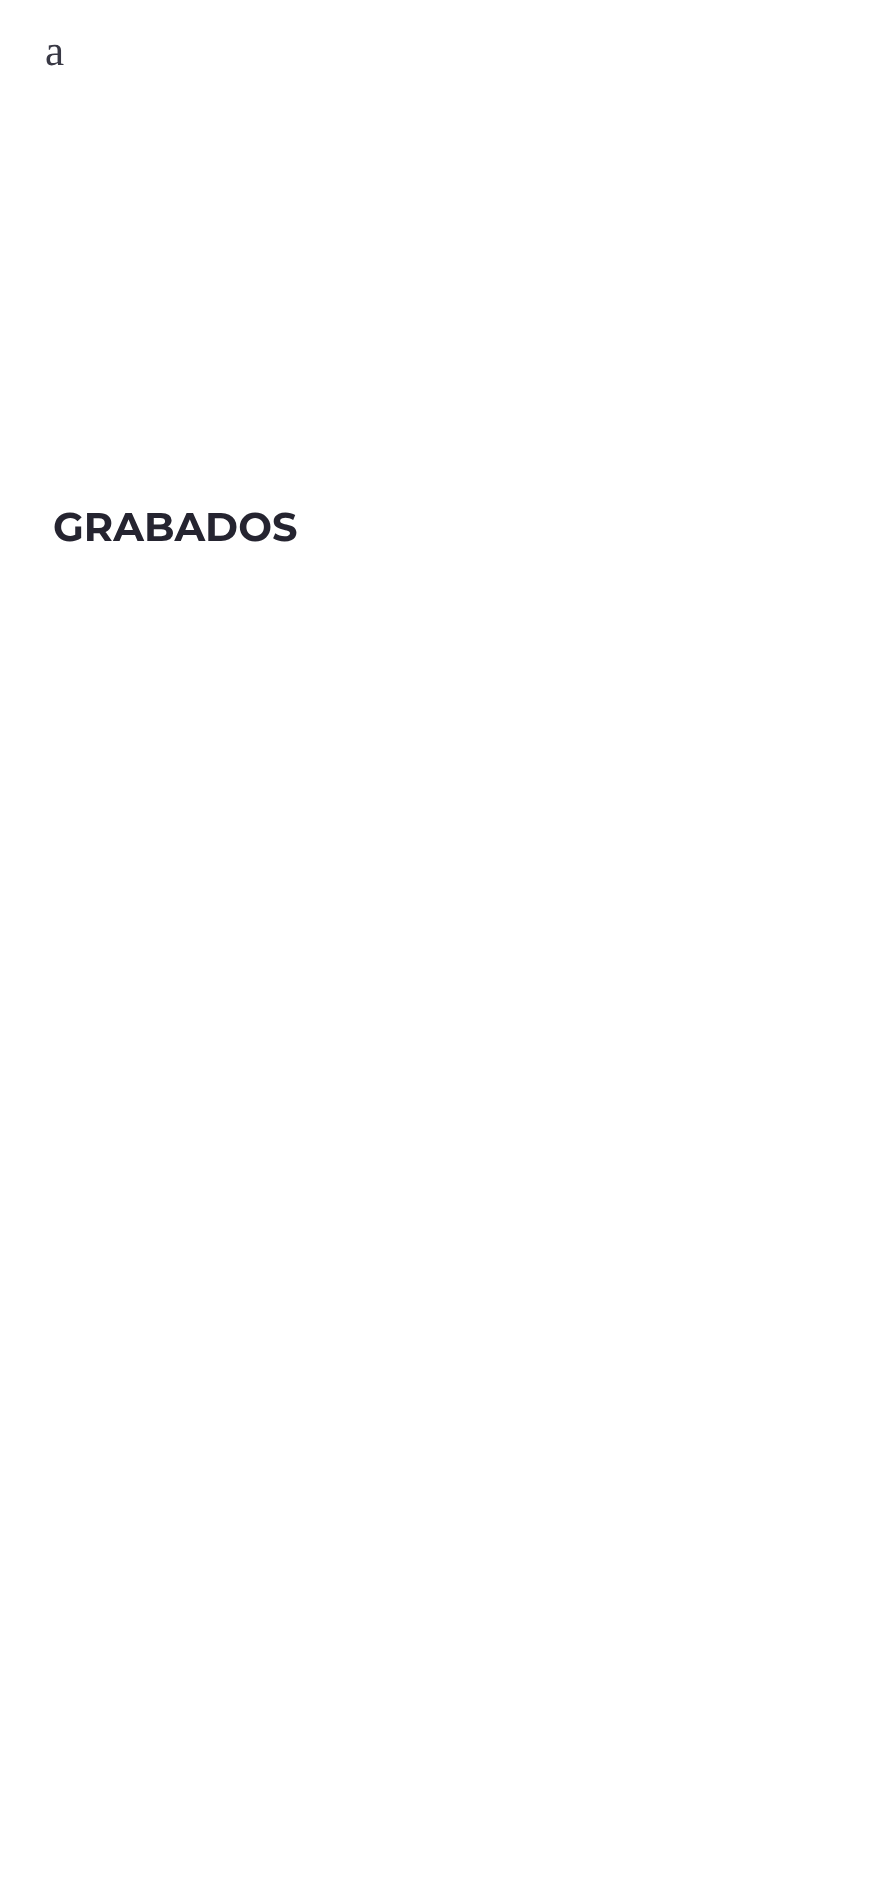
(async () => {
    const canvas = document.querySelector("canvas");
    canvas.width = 873;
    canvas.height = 1890;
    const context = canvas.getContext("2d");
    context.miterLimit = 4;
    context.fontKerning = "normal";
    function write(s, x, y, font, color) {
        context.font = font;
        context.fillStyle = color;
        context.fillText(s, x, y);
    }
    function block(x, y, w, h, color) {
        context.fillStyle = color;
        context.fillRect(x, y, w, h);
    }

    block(0, 0, 873, 1890, "rgb(255, 255, 255)");
    write("a", 45, 65, "43px Liberation Serif", "rgb(57, 57, 69)");
    write("GRABADOS", 53, 541, "bold 40px Montserrat", "rgb(37, 36, 48)");
})();
